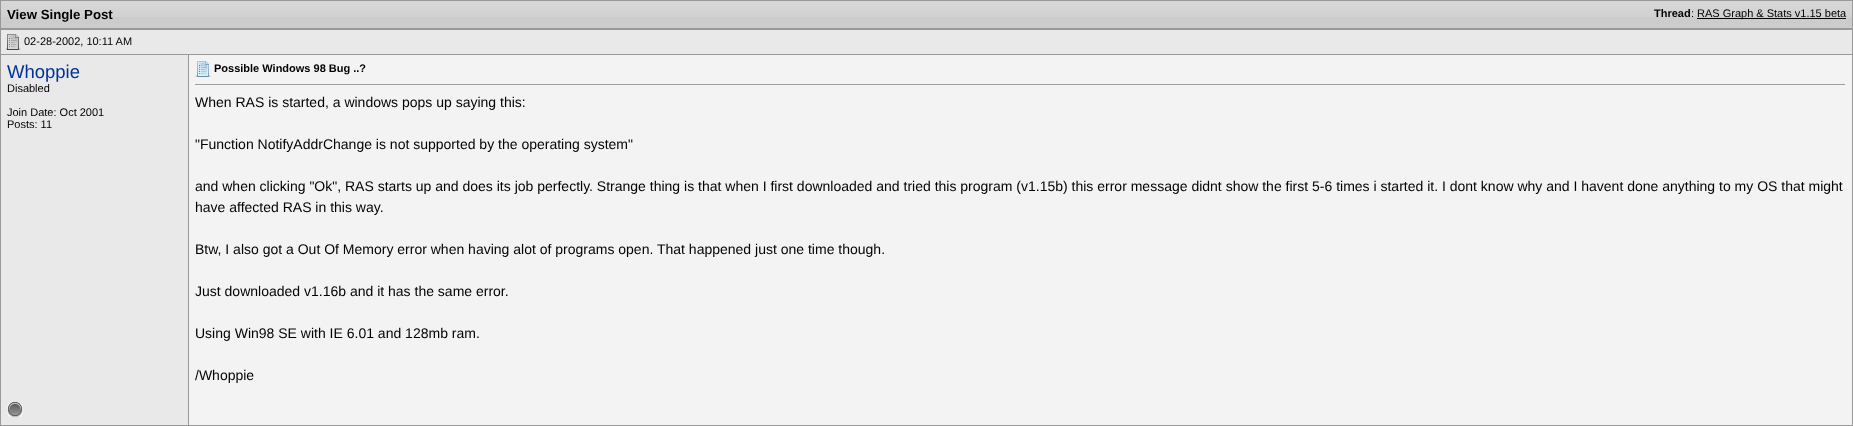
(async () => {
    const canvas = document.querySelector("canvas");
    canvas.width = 1853;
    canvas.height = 426;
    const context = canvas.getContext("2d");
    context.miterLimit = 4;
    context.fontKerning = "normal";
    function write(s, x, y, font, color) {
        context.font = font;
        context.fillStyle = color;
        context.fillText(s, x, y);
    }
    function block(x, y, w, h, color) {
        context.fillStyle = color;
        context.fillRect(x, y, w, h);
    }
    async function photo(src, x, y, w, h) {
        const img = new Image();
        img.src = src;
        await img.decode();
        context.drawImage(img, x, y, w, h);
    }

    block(0, 0, 1853, 426, "rgb(153, 153, 153)");
    block(1, 17, 1851, 11, "rgb(204, 204, 204)");
    await photo("media/1.png", 1, 1, 1851, 16);
    write("View Single Post", 7, 19, "bold 13.25px Liberation Sans", "rgb(0, 0, 0)");
    write("Thread", 1654, 17, "bold 11px Liberation Sans", "rgb(0, 0, 0)");
    write(":", 1691, 17, "11px Liberation Sans", "rgb(0, 0, 0)");
    block(1697, 18, 149, 1, "rgb(0, 0, 0)");
    write("RAS Graph & Stats v1.15 beta", 1697, 17, "11px Liberation Sans", "rgb(0, 0, 0)");
    block(1, 30, 1851, 24, "rgb(233, 233, 233)");
    await photo("media/2.png", 5, 34, 16, 16);
    write("02-28-2002, 10:11 AM", 24, 45, "11px Liberation Sans", "rgb(0, 0, 0)");
    block(1, 55, 187, 370, "rgb(233, 233, 233)");
    write("Whoppie", 7, 78, "18.5px Liberation Sans", "rgb(0, 51, 153)");
    write("Disabled", 7, 92, "11px Liberation Sans", "rgb(0, 0, 0)");
    write("Join Date: Oct 2001", 7, 116, "11px Liberation Sans", "rgb(0, 0, 0)");
    write("Posts: 11", 7, 128, "11px Liberation Sans", "rgb(0, 0, 0)");
    block(189, 55, 1663, 370, "rgb(243, 243, 243)");
    await photo("media/3.png", 195, 61, 16, 16);
    write("Possible Windows 98 Bug ..?", 214, 72, "bold 11px Liberation Sans", "rgb(0, 0, 0)");
    block(195, 84, 1651, 1, "rgb(159, 159, 159)");
    block(1845, 84, 1, 1, "rgb(238, 238, 238)");
    write("When RAS is started, a windows pops up saying this:", 195, 107, "14px Liberation Sans", "rgb(0, 0, 0)");
    write("\"Function NotifyAddrChange is not supported by the operating system\"", 195, 149, "14px Liberation Sans", "rgb(0, 0, 0)");
    write("and when clicking \"Ok\", RAS starts up and does its job perfectly. Strange thing is that when I first downloaded and tried this program (v1.15b) this error message didnt show the first 5-6 times i started it. I dont know why and I havent done anything to my OS that might", 195, 191, "14px Liberation Sans", "rgb(0, 0, 0)");
    write("have affected RAS in this way.", 195, 212, "14px Liberation Sans", "rgb(0, 0, 0)");
    write("Btw, I also got a Out Of Memory error when having alot of programs open. That happened just one time though.", 195, 254, "14px Liberation Sans", "rgb(0, 0, 0)");
    write("Just downloaded v1.16b and it has the same error.", 195, 296, "14px Liberation Sans", "rgb(0, 0, 0)");
    write("Using Win98 SE with IE 6.01 and 128mb ram.", 195, 338, "14px Liberation Sans", "rgb(0, 0, 0)");
    write("/Whoppie", 195, 380, "14px Liberation Sans", "rgb(0, 0, 0)");
    await photo("media/4.png", 7, 402, 16, 15);
})();
